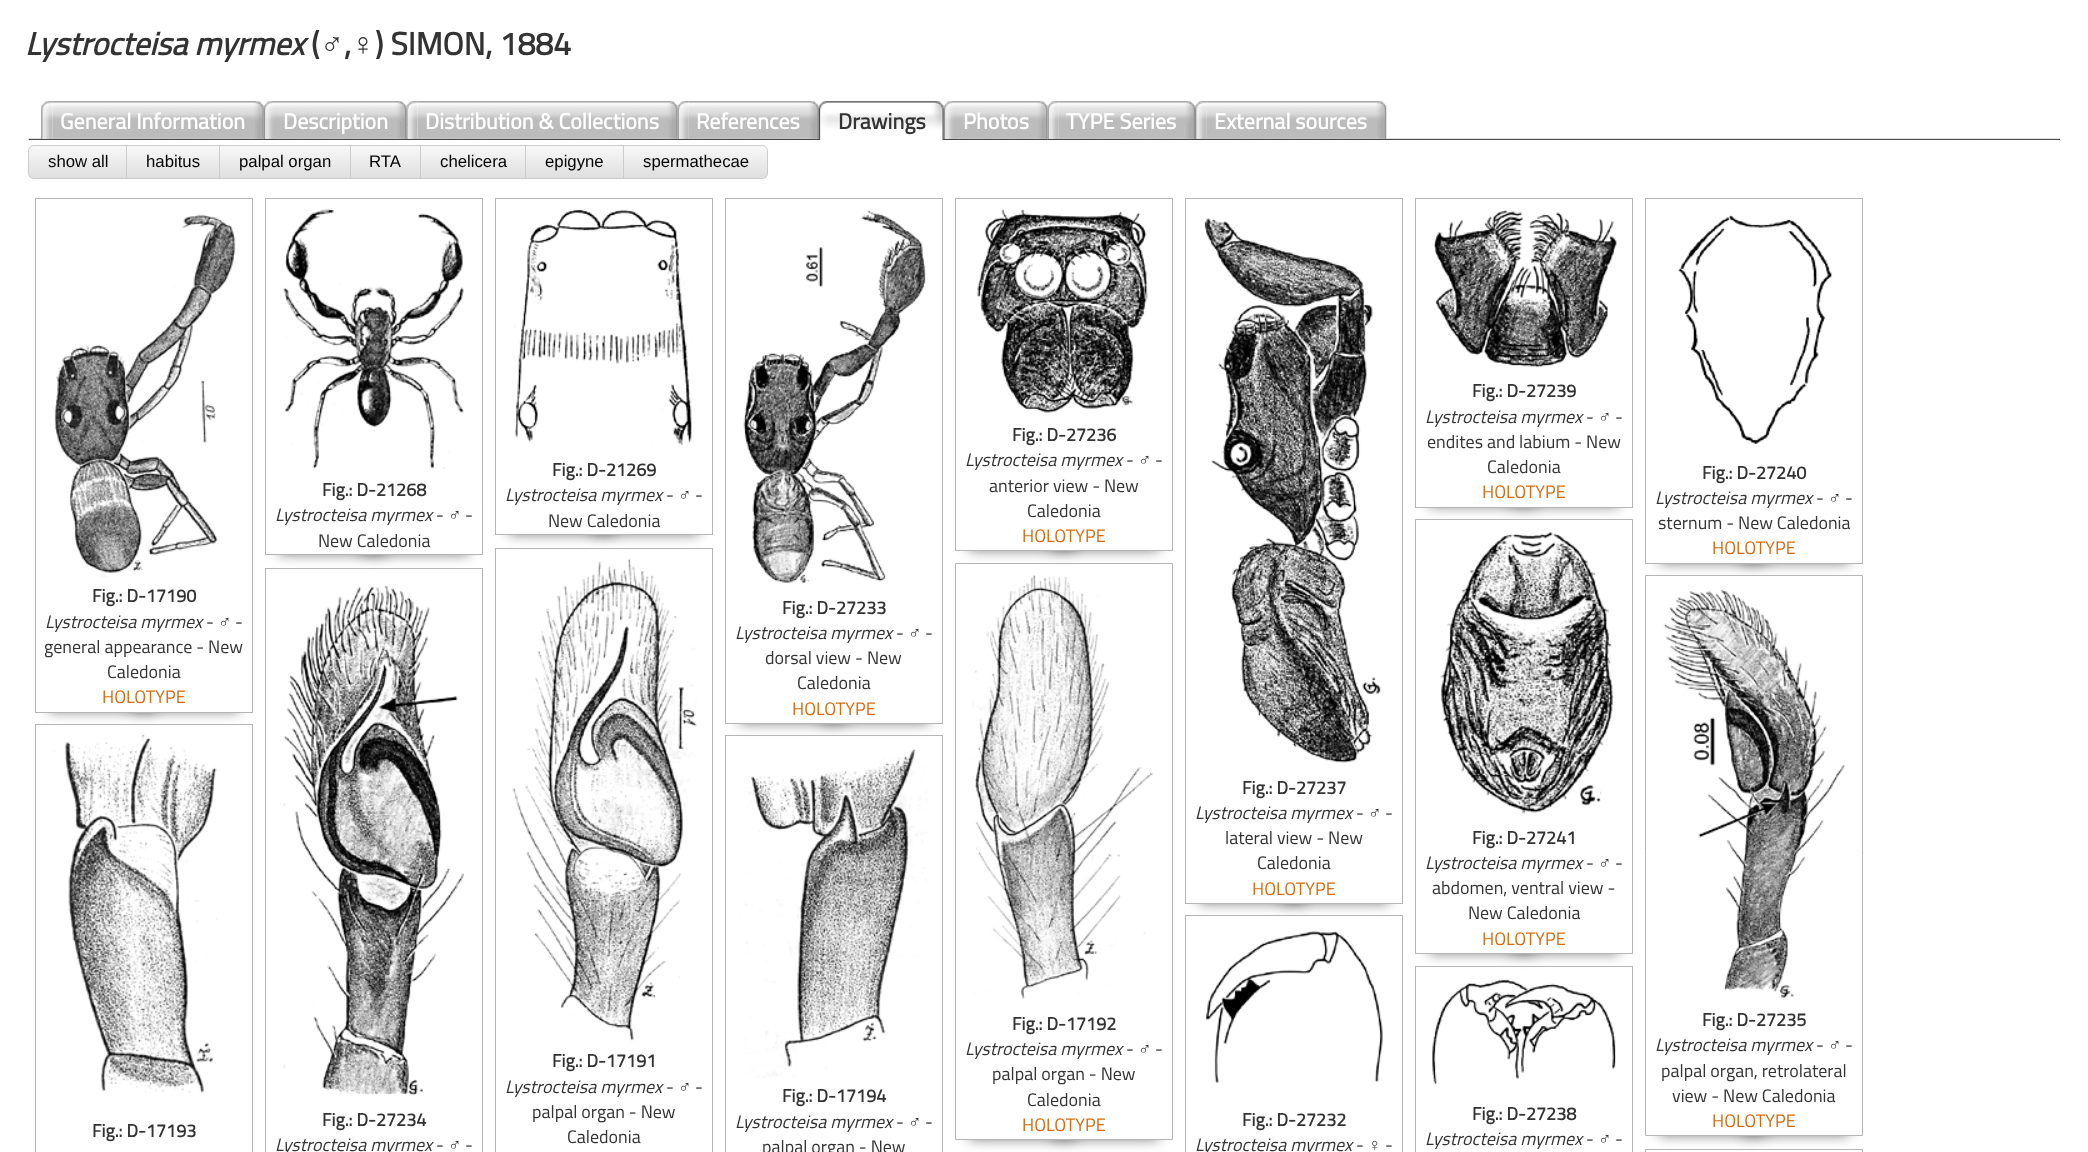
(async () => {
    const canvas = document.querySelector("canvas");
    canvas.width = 2088;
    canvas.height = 1152;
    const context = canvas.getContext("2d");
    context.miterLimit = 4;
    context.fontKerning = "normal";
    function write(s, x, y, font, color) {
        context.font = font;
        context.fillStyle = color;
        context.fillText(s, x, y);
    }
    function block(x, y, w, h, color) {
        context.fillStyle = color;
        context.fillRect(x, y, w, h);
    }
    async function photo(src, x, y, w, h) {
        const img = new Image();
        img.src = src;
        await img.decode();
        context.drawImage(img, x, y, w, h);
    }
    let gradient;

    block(0, 0, 2088, 1152, "rgb(255, 255, 255)");
    write("Lystrocteisa myrmex", 25, 55, "italic bold 32px Titillium Web", "rgb(51, 51, 51)");
    write("(", 311, 55, "bold 32px Titillium Web", "rgb(51, 51, 51)");
    write("♂", 320, 55, "bold 32px Liberation Serif", "rgb(51, 51, 51)");
    write("♀", 351, 55, "bold 32px Liberation Serif", "rgb(51, 51, 51)");
    write(") SIMON, 1884", 375, 55, "bold 32px Titillium Web", "rgb(51, 51, 51)");
    write(",", 344, 55, "bold 32px Titillium Web", "rgb(51, 51, 51)");
    await photo("media/1.png", 28, 138, 2032, 2);
    await photo("media/2.png", 41, 101, 12, 38);
    block(41, 139, 223, 1, "rgb(70, 70, 70)");
    await photo("media/3.png", 52, 101, 212, 38);
    write("General Information", 60, 129, "bold 22px Titillium Web", "rgb(255, 255, 255)");
    await photo("media/4.png", 263, 101, 12, 39);
    block(264, 139, 414, 1, "rgb(70, 70, 70)");
    await photo("media/5.png", 275, 101, 132, 38);
    write("Description", 283, 129, "bold 22px Titillium Web", "rgb(255, 255, 255)");
    await photo("media/6.png", 406, 101, 12, 38);
    await photo("media/7.png", 417, 101, 261, 38);
    write("Distribution & Collections", 425, 129, "bold 22px Titillium Web", "rgb(255, 255, 255)");
    await photo("media/8.png", 677, 101, 12, 39);
    block(678, 139, 141, 1, "rgb(70, 70, 70)");
    await photo("media/9.png", 688, 101, 131, 38);
    write("References", 696, 129, "bold 22px Titillium Web", "rgb(255, 255, 255)");
    await photo("media/10.png", 818, 101, 12, 39);
    await photo("media/11.png", 830, 101, 114, 39);
    write("Drawings", 838, 129, "bold 22px Titillium Web", "rgb(51, 51, 51)");
    await photo("media/12.png", 943, 101, 12, 39);
    block(944, 139, 104, 1, "rgb(70, 70, 70)");
    await photo("media/13.png", 955, 101, 93, 38);
    write("Photos", 963, 129, "bold 22px Titillium Web", "rgb(255, 255, 255)");
    await photo("media/14.png", 1047, 101, 12, 39);
    block(1048, 139, 338, 1, "rgb(70, 70, 70)");
    await photo("media/15.png", 1058, 101, 137, 38);
    write("TYPE Series", 1066, 129, "bold 22px Titillium Web", "rgb(255, 255, 255)");
    await photo("media/16.png", 1195, 101, 12, 38);
    await photo("media/17.png", 1206, 101, 181, 38);
    write("External sources", 1214, 129, "bold 22px Titillium Web", "rgb(255, 255, 255)");
    context.save();
    context.beginPath();
    context.roundRect(28, 145, 100, 34, [6, 0, 0, 6]);
    context.clip();
    gradient = context.createLinearGradient(78, 146, 78, 178);
    gradient.addColorStop(0, "rgb(248, 248, 248)");
    gradient.addColorStop(1, "rgb(223, 223, 223)");
    context.fillStyle = gradient;
    context.fillRect(28, 146, 98, 32);
    context.restore();
    context.beginPath();
    context.roundRect(28.5, 145.5, 99, 33, [5.5, 0, 0, 5.5]);
    context.strokeStyle = "rgb(204, 204, 204)";
    context.stroke();
    write("show all", 48, 167, "16.75px Liberation Sans", "rgb(0, 0, 0)");
    gradient = context.createLinearGradient(173, 146, 173, 178);
    gradient.addColorStop(0, "rgb(248, 248, 248)");
    gradient.addColorStop(1, "rgb(223, 223, 223)");
    context.fillStyle = gradient;
    context.fillRect(127, 146, 92, 32);
    context.strokeRect(126.5, 145.5, 93, 33);
    write("habitus", 146, 167, "16.75px Liberation Sans", "rgb(0, 0, 0)");
    gradient = context.createLinearGradient(285, 146, 285, 178);
    gradient.addColorStop(0, "rgb(248, 248, 248)");
    gradient.addColorStop(1, "rgb(223, 223, 223)");
    context.fillStyle = gradient;
    context.fillRect(220, 146, 130, 32);
    context.strokeRect(219.5, 145.5, 131, 33);
    write("palpal organ", 239, 167, "16.75px Liberation Sans", "rgb(0, 0, 0)");
    gradient = context.createLinearGradient(386, 146, 386, 178);
    gradient.addColorStop(0, "rgb(248, 248, 248)");
    gradient.addColorStop(1, "rgb(223, 223, 223)");
    context.fillStyle = gradient;
    context.fillRect(351, 146, 69, 32);
    context.strokeRect(350.5, 145.5, 70, 33);
    write("RTA", 369, 167, "16.75px Liberation Sans", "rgb(0, 0, 0)");
    gradient = context.createLinearGradient(473, 146, 473, 178);
    gradient.addColorStop(0, "rgb(248, 248, 248)");
    gradient.addColorStop(1, "rgb(223, 223, 223)");
    context.fillStyle = gradient;
    context.fillRect(421, 146, 104, 32);
    context.strokeRect(420.5, 145.5, 105, 33);
    write("chelicera", 440, 167, "16.75px Liberation Sans", "rgb(0, 0, 0)");
    gradient = context.createLinearGradient(574, 146, 574, 178);
    gradient.addColorStop(0, "rgb(248, 248, 248)");
    gradient.addColorStop(1, "rgb(223, 223, 223)");
    context.fillStyle = gradient;
    context.fillRect(526, 146, 97, 32);
    context.strokeRect(525.5, 145.5, 98, 33);
    write("epigyne", 545, 167, "16.75px Liberation Sans", "rgb(0, 0, 0)");
    context.save();
    context.beginPath();
    context.roundRect(623, 145, 145, 34, [0, 6, 6, 0]);
    context.clip();
    gradient = context.createLinearGradient(695, 146, 695, 178);
    gradient.addColorStop(0, "rgb(248, 248, 248)");
    gradient.addColorStop(1, "rgb(223, 223, 223)");
    context.fillStyle = gradient;
    context.fillRect(624, 146, 144, 32);
    context.restore();
    context.beginPath();
    context.roundRect(623.5, 145.5, 144, 33, [0, 5.5, 5.5, 0]);
    context.stroke();
    write("spermathecae", 643, 167, "16.75px Liberation Sans", "rgb(0, 0, 0)");
    context.fillStyle = "rgb(119, 119, 119)";
    context.filter = "blur(6.5px)";
    context.beginPath();
    context.rect(279, 503, 107, 51);
    context.fill();
    context.filter = "none";
    context.filter = "blur(6.5px)";
    context.beginPath();
    context.rect(361, 503, 108, 51);
    context.fill();
    context.filter = "none";
    block(266, 488, 216, 66, "rgb(255, 255, 255)");
    context.strokeStyle = "rgb(182, 181, 180)";
    context.strokeRect(265.5, 198.5, 217, 356);
    await photo("media/18.png", 283, 208, 181, 262);
    write("Fig.: D-21268", 322, 496, "bold 18px Titillium Web", "rgb(51, 51, 51)");
    write("Lystrocteisa myrmex", 275, 521, "italic 18px Titillium Web", "rgb(51, 51, 51)");
    write("-", 436, 521, "18px Titillium Web", "rgb(51, 51, 51)");
    write("♂", 448, 521, "18px Liberation Serif", "rgb(51, 51, 51)");
    write("-", 465, 521, "18px Titillium Web", "rgb(51, 51, 51)");
    write("New Caledonia", 318, 547, "18px Titillium Web", "rgb(51, 51, 51)");
    context.fillStyle = "rgb(119, 119, 119)";
    context.filter = "blur(6.5px)";
    context.beginPath();
    context.rect(509, 486, 107, 48);
    context.fill();
    context.filter = "none";
    context.filter = "blur(6.5px)";
    context.beginPath();
    context.rect(591, 486, 108, 48);
    context.fill();
    context.filter = "none";
    block(496, 471, 216, 63, "rgb(255, 255, 255)");
    context.strokeRect(495.5, 198.5, 217, 336);
    await photo("media/19.png", 514, 209, 180, 237);
    write("Fig.: D-21269", 552, 476, "bold 18px Titillium Web", "rgb(51, 51, 51)");
    write("Lystrocteisa myrmex", 505, 501, "italic 18px Titillium Web", "rgb(51, 51, 51)");
    write("-", 666, 501, "18px Titillium Web", "rgb(51, 51, 51)");
    write("♂", 678, 501, "18px Liberation Serif", "rgb(51, 51, 51)");
    write("-", 695, 501, "18px Titillium Web", "rgb(51, 51, 51)");
    write("New Caledonia", 548, 527, "18px Titillium Web", "rgb(51, 51, 51)");
    context.fillStyle = "rgb(119, 119, 119)";
    context.filter = "blur(6.5px)";
    context.beginPath();
    context.rect(969, 499, 107, 51);
    context.fill();
    context.filter = "none";
    context.filter = "blur(6.5px)";
    context.beginPath();
    context.rect(1051, 499, 108, 51);
    context.fill();
    context.filter = "none";
    block(956, 484, 216, 66, "rgb(255, 255, 255)");
    context.strokeRect(955.5, 198.5, 217, 352);
    await photo("media/20.png", 977, 209, 171, 204);
    write("Fig.: D-27236", 1012, 441, "bold 18px Titillium Web", "rgb(51, 51, 51)");
    write("Lystrocteisa myrmex", 965, 466, "italic 18px Titillium Web", "rgb(51, 51, 51)");
    write("-", 1126, 466, "18px Titillium Web", "rgb(51, 51, 51)");
    write("♂", 1138, 466, "18px Liberation Serif", "rgb(51, 51, 51)");
    write("-", 1155, 466, "18px Titillium Web", "rgb(51, 51, 51)");
    write("anterior view - New", 989, 492, "18px Titillium Web", "rgb(51, 51, 51)");
    write("Caledonia", 1027, 517, "18px Titillium Web", "rgb(51, 51, 51)");
    write("HOLOTYPE", 1022, 542, "18px Titillium Web", "rgb(214, 106, 15)");
    context.fillStyle = "rgb(119, 119, 119)";
    context.filter = "blur(6.5px)";
    context.beginPath();
    context.rect(1429, 464, 107, 42);
    context.fill();
    context.filter = "none";
    context.filter = "blur(6.5px)";
    context.beginPath();
    context.rect(1511, 464, 108, 42);
    context.fill();
    context.filter = "none";
    block(1416, 449, 216, 58, "rgb(255, 255, 255)");
    context.strokeRect(1415.5, 198.5, 217, 309);
    await photo("media/21.png", 1433, 210, 184, 158);
    write("Fig.: D-27239", 1472, 397, "bold 18px Titillium Web", "rgb(51, 51, 51)");
    write("Lystrocteisa myrmex", 1425, 423, "italic 18px Titillium Web", "rgb(51, 51, 51)");
    write("-", 1586, 423, "18px Titillium Web", "rgb(51, 51, 51)");
    write("♂", 1598, 423, "18px Liberation Serif", "rgb(51, 51, 51)");
    write("-", 1615, 423, "18px Titillium Web", "rgb(51, 51, 51)");
    write("endites and labium - New", 1427, 448, "18px Titillium Web", "rgb(51, 51, 51)");
    write("Caledonia", 1487, 473, "18px Titillium Web", "rgb(51, 51, 51)");
    write("HOLOTYPE", 1482, 498, "18px Titillium Web", "rgb(214, 106, 15)");
    context.fillStyle = "rgb(119, 119, 119)";
    context.filter = "blur(6.5px)";
    context.beginPath();
    context.rect(1659, 508, 107, 55);
    context.fill();
    context.filter = "none";
    context.filter = "blur(6.5px)";
    context.beginPath();
    context.rect(1741, 508, 108, 55);
    context.fill();
    context.filter = "none";
    block(1646, 493, 216, 70, "rgb(255, 255, 255)");
    context.strokeRect(1645.5, 198.5, 217, 365);
    await photo("media/22.png", 1678, 215, 155, 229);
    write("Fig.: D-27240", 1702, 479, "bold 18px Titillium Web", "rgb(51, 51, 51)");
    write("Lystrocteisa myrmex", 1655, 504, "italic 18px Titillium Web", "rgb(51, 51, 51)");
    write("-", 1816, 504, "18px Titillium Web", "rgb(51, 51, 51)");
    write("♂", 1828, 504, "18px Liberation Serif", "rgb(51, 51, 51)");
    write("-", 1845, 504, "18px Titillium Web", "rgb(51, 51, 51)");
    write("sternum - New Caledonia", 1658, 529, "18px Titillium Web", "rgb(51, 51, 51)");
    write("HOLOTYPE", 1712, 554, "18px Titillium Web", "rgb(214, 106, 15)");
    context.fillStyle = "rgb(119, 119, 119)";
    context.filter = "blur(6.5px)";
    context.beginPath();
    context.rect(49, 628, 107, 83);
    context.fill();
    context.filter = "none";
    context.filter = "blur(6.5px)";
    context.beginPath();
    context.rect(131, 628, 108, 83);
    context.fill();
    context.filter = "none";
    block(36, 613, 216, 99, "rgb(255, 255, 255)");
    context.strokeRect(35.5, 198.5, 217, 514);
    await photo("media/23.png", 54, 214, 182, 364);
    write("Fig.: D-17190", 92, 602, "bold 18px Titillium Web", "rgb(51, 51, 51)");
    write("Lystrocteisa myrmex", 45, 628, "italic 18px Titillium Web", "rgb(51, 51, 51)");
    write("-", 206, 628, "18px Titillium Web", "rgb(51, 51, 51)");
    write("♂", 218, 628, "18px Liberation Serif", "rgb(51, 51, 51)");
    write("-", 235, 628, "18px Titillium Web", "rgb(51, 51, 51)");
    write("general appearance - New", 44, 653, "18px Titillium Web", "rgb(51, 51, 51)");
    write("Caledonia", 107, 678, "18px Titillium Web", "rgb(51, 51, 51)");
    write("HOLOTYPE", 102, 703, "18px Titillium Web", "rgb(214, 106, 15)");
    context.fillStyle = "rgb(119, 119, 119)";
    context.filter = "blur(6.5px)";
    context.beginPath();
    context.rect(739, 636, 107, 87);
    context.fill();
    context.filter = "none";
    context.filter = "blur(6.5px)";
    context.beginPath();
    context.rect(821, 636, 108, 87);
    context.fill();
    context.filter = "none";
    block(726, 621, 216, 102, "rgb(255, 255, 255)");
    context.strokeRect(725.5, 198.5, 217, 525);
    await photo("media/24.png", 743, 210, 183, 374);
    write("Fig.: D-27233", 782, 614, "bold 18px Titillium Web", "rgb(51, 51, 51)");
    write("Lystrocteisa myrmex", 735, 639, "italic 18px Titillium Web", "rgb(51, 51, 51)");
    write("-", 896, 639, "18px Titillium Web", "rgb(51, 51, 51)");
    write("♂", 908, 639, "18px Liberation Serif", "rgb(51, 51, 51)");
    write("-", 925, 639, "18px Titillium Web", "rgb(51, 51, 51)");
    write("dorsal view - New", 765, 664, "18px Titillium Web", "rgb(51, 51, 51)");
    write("Caledonia", 797, 689, "18px Titillium Web", "rgb(51, 51, 51)");
    write("HOLOTYPE", 792, 715, "18px Titillium Web", "rgb(214, 106, 15)");
    context.fillStyle = "rgb(119, 119, 119)";
    context.filter = "blur(6.5px)";
    context.beginPath();
    context.rect(1199, 780, 107, 123);
    context.fill();
    context.filter = "none";
    context.filter = "blur(6.5px)";
    context.beginPath();
    context.rect(1281, 780, 108, 123);
    context.fill();
    context.filter = "none";
    block(1186, 765, 216, 138, "rgb(255, 255, 255)");
    context.strokeRect(1185.5, 198.5, 217, 705);
    await photo("media/25.png", 1204, 218, 177, 545);
    write("Fig.: D-27237", 1242, 794, "bold 18px Titillium Web", "rgb(51, 51, 51)");
    write("Lystrocteisa myrmex", 1195, 819, "italic 18px Titillium Web", "rgb(51, 51, 51)");
    write("-", 1356, 819, "18px Titillium Web", "rgb(51, 51, 51)");
    write("♂", 1368, 819, "18px Liberation Serif", "rgb(51, 51, 51)");
    write("-", 1385, 819, "18px Titillium Web", "rgb(51, 51, 51)");
    write("lateral view - New", 1225, 844, "18px Titillium Web", "rgb(51, 51, 51)");
    write("Caledonia", 1257, 869, "18px Titillium Web", "rgb(51, 51, 51)");
    write("HOLOTYPE", 1252, 895, "18px Titillium Web", "rgb(214, 106, 15)");
    context.fillStyle = "rgb(119, 119, 119)";
    context.filter = "blur(6.5px)";
    context.beginPath();
    context.rect(1429, 885, 107, 68);
    context.fill();
    context.filter = "none";
    context.filter = "blur(6.5px)";
    context.beginPath();
    context.rect(1511, 885, 108, 68);
    context.fill();
    context.filter = "none";
    context.fillStyle = "rgb(255, 255, 255)";
    context.beginPath();
    context.rect(1415.5, 519.5, 217, 434);
    context.fill();
    context.stroke();
    await photo("media/26.png", 1440, 532, 174, 282);
    write("Fig.: D-27241", 1472, 844, "bold 18px Titillium Web", "rgb(51, 51, 51)");
    write("Lystrocteisa myrmex", 1425, 869, "italic 18px Titillium Web", "rgb(51, 51, 51)");
    write("-", 1586, 869, "18px Titillium Web", "rgb(51, 51, 51)");
    write("♂", 1598, 869, "18px Liberation Serif", "rgb(51, 51, 51)");
    write("-", 1615, 869, "18px Titillium Web", "rgb(51, 51, 51)");
    write("abdomen, ventral view -", 1432, 894, "18px Titillium Web", "rgb(51, 51, 51)");
    write("New Caledonia", 1468, 919, "18px Titillium Web", "rgb(51, 51, 51)");
    write("HOLOTYPE", 1482, 945, "18px Titillium Web", "rgb(214, 106, 15)");
    block(131, 725, 25, 1, "rgb(255, 255, 255)");
    context.strokeRect(35.5, 724.5, 217, 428);
    await photo("media/27.png", 53, 734, 165, 359);
    write("Fig.: D-17193", 92, 1137, "bold 18px Titillium Web", "rgb(51, 51, 51)");
    context.strokeRect(265.5, 568.5, 217, 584);
    await photo("media/28.png", 283, 585, 182, 511);
    write("Fig.: D-27234", 322, 1126, "bold 18px Titillium Web", "rgb(51, 51, 51)");
    write("Lystrocteisa myrmex", 275, 1151, "italic 18px Titillium Web", "rgb(51, 51, 51)");
    write("-", 436, 1151, "18px Titillium Web", "rgb(51, 51, 51)");
    write("♂", 448, 1151, "18px Liberation Serif", "rgb(51, 51, 51)");
    write("-", 465, 1151, "18px Titillium Web", "rgb(51, 51, 51)");
    context.strokeRect(495.5, 548.5, 217, 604);
    await photo("media/29.png", 512, 558, 185, 483);
    write("Fig.: D-17191", 552, 1067, "bold 18px Titillium Web", "rgb(51, 51, 51)");
    write("Lystrocteisa myrmex", 505, 1093, "italic 18px Titillium Web", "rgb(51, 51, 51)");
    write("-", 666, 1093, "18px Titillium Web", "rgb(51, 51, 51)");
    write("♂", 678, 1093, "18px Liberation Serif", "rgb(51, 51, 51)");
    write("-", 695, 1093, "18px Titillium Web", "rgb(51, 51, 51)");
    write("palpal organ - New", 532, 1118, "18px Titillium Web", "rgb(51, 51, 51)");
    write("Caledonia", 567, 1143, "18px Titillium Web", "rgb(51, 51, 51)");
    block(810, 736, 47, 2, "rgb(255, 255, 255)");
    context.strokeRect(725.5, 735.5, 217, 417);
    await photo("media/30.png", 740, 748, 188, 330);
    write("Fig.: D-17194", 782, 1102, "bold 18px Titillium Web", "rgb(51, 51, 51)");
    write("Lystrocteisa myrmex", 735, 1128, "italic 18px Titillium Web", "rgb(51, 51, 51)");
    write("-", 896, 1128, "18px Titillium Web", "rgb(51, 51, 51)");
    write("♂", 908, 1128, "18px Liberation Serif", "rgb(51, 51, 51)");
    write("-", 925, 1128, "18px Titillium Web", "rgb(51, 51, 51)");
    write("palpal organ - New", 762, 1153, "18px Titillium Web", "rgb(51, 51, 51)");
    context.fillStyle = "rgb(119, 119, 119)";
    context.filter = "blur(6.5px)";
    context.beginPath();
    context.rect(969, 1043, 107, 96);
    context.fill();
    context.filter = "none";
    context.filter = "blur(6.5px)";
    context.beginPath();
    context.rect(1051, 1043, 108, 96);
    context.fill();
    context.filter = "none";
    context.fillStyle = "rgb(255, 255, 255)";
    context.beginPath();
    context.rect(955.5, 563.5, 217, 576);
    context.fill();
    context.stroke();
    await photo("media/31.png", 972, 575, 181, 424);
    write("Fig.: D-17192", 1012, 1030, "bold 18px Titillium Web", "rgb(51, 51, 51)");
    write("Lystrocteisa myrmex", 965, 1055, "italic 18px Titillium Web", "rgb(51, 51, 51)");
    write("-", 1126, 1055, "18px Titillium Web", "rgb(51, 51, 51)");
    write("♂", 1138, 1055, "18px Liberation Serif", "rgb(51, 51, 51)");
    write("-", 1155, 1055, "18px Titillium Web", "rgb(51, 51, 51)");
    write("palpal organ - New", 992, 1080, "18px Titillium Web", "rgb(51, 51, 51)");
    write("Caledonia", 1027, 1106, "18px Titillium Web", "rgb(51, 51, 51)");
    write("HOLOTYPE", 1022, 1131, "18px Titillium Web", "rgb(214, 106, 15)");
    block(1270, 916, 47, 2, "rgb(255, 255, 255)");
    context.strokeRect(1185.5, 915.5, 217, 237);
    await photo("media/32.png", 1205, 931, 178, 152);
    write("Fig.: D-27232", 1242, 1126, "bold 18px Titillium Web", "rgb(51, 51, 51)");
    write("Lystrocteisa myrmex", 1195, 1151, "italic 18px Titillium Web", "rgb(51, 51, 51)");
    write("-", 1356, 1151, "18px Titillium Web", "rgb(51, 51, 51)");
    write("♀", 1368, 1151, "18px Liberation Serif", "rgb(51, 51, 51)");
    write("-", 1385, 1151, "18px Titillium Web", "rgb(51, 51, 51)");
    block(1511, 967, 25, 1, "rgb(255, 255, 255)");
    context.strokeRect(1415.5, 966.5, 217, 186);
    await photo("media/33.png", 1432, 979, 184, 105);
    write("Fig.: D-27238", 1472, 1120, "bold 18px Titillium Web", "rgb(51, 51, 51)");
    write("Lystrocteisa myrmex", 1425, 1145, "italic 18px Titillium Web", "rgb(51, 51, 51)");
    write("-", 1586, 1145, "18px Titillium Web", "rgb(51, 51, 51)");
    write("♂", 1598, 1145, "18px Liberation Serif", "rgb(51, 51, 51)");
    write("-", 1615, 1145, "18px Titillium Web", "rgb(51, 51, 51)");
    context.fillStyle = "rgb(119, 119, 119)";
    context.filter = "blur(6.5px)";
    context.beginPath();
    context.rect(1659, 1041, 107, 94);
    context.fill();
    context.filter = "none";
    context.filter = "blur(6.5px)";
    context.beginPath();
    context.rect(1741, 1041, 108, 94);
    context.fill();
    context.filter = "none";
    context.fillStyle = "rgb(255, 255, 255)";
    context.beginPath();
    context.rect(1645.5, 575.5, 217, 560);
    context.fill();
    context.stroke();
    await photo("media/34.png", 1663, 589, 183, 409);
    write("Fig.: D-27235", 1702, 1026, "bold 18px Titillium Web", "rgb(51, 51, 51)");
    write("Lystrocteisa myrmex", 1655, 1051, "italic 18px Titillium Web", "rgb(51, 51, 51)");
    write("-", 1816, 1051, "18px Titillium Web", "rgb(51, 51, 51)");
    write("♂", 1828, 1051, "18px Liberation Serif", "rgb(51, 51, 51)");
    write("-", 1845, 1051, "18px Titillium Web", "rgb(51, 51, 51)");
    write("palpal organ, retrolateral", 1661, 1077, "18px Titillium Web", "rgb(51, 51, 51)");
    write("view - New Caledonia", 1672, 1102, "18px Titillium Web", "rgb(51, 51, 51)");
    write("HOLOTYPE", 1712, 1127, "18px Titillium Web", "rgb(214, 106, 15)");
    context.strokeRect(1645.5, 1149.5, 217, 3);
})();
